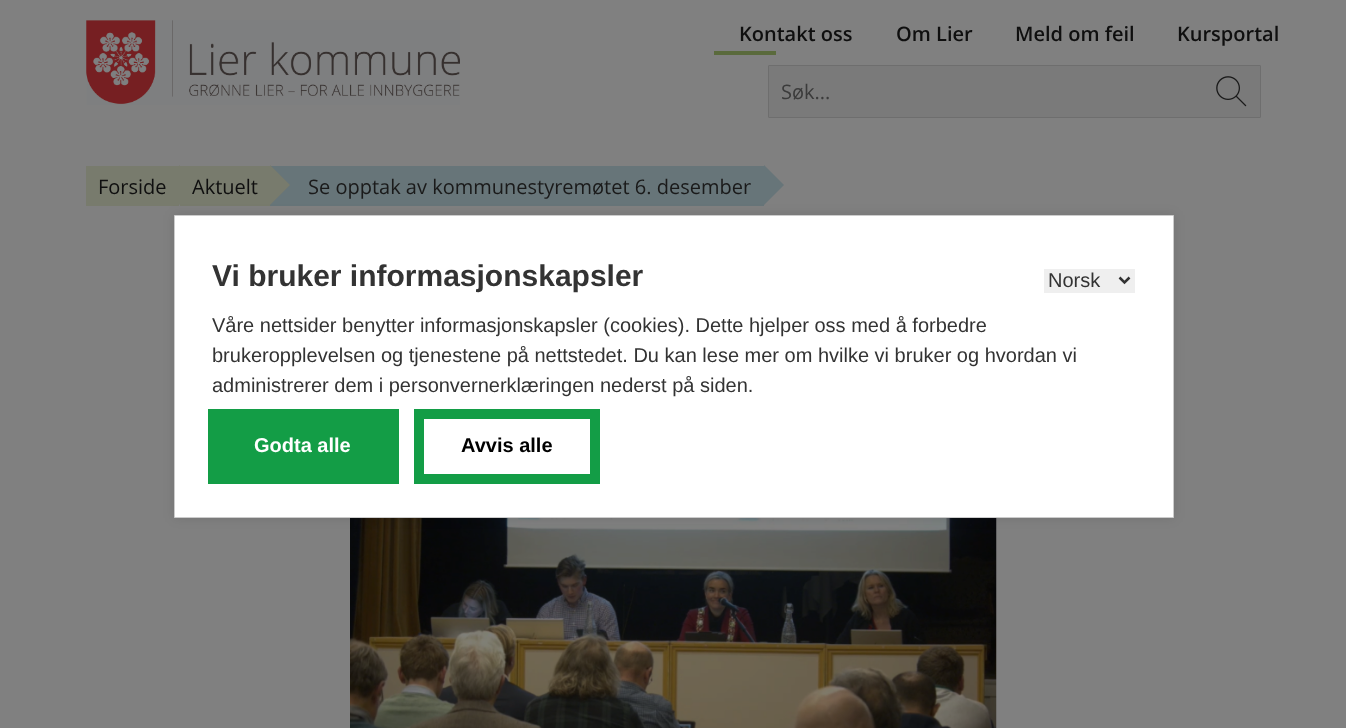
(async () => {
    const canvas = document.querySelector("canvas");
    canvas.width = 1346;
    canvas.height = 728;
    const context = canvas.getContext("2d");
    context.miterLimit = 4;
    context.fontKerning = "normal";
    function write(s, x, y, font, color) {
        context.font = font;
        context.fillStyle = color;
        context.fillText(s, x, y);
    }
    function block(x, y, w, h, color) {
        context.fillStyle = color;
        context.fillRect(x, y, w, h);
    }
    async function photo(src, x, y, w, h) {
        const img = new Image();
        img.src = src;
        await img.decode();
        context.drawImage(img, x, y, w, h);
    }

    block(0, 0, 1346, 728, "rgb(128, 128, 128)");
    await photo("media/1.png", 86, 20, 374, 85);
    write("Kontakt oss", 739, 41, "600 20px Open Sans", "rgb(15, 15, 15)");
    block(714, 51, 62, 4, "rgb(90, 106, 60)");
    write("Om Lier", 896, 41, "600 20px Open Sans", "rgb(15, 15, 15)");
    write("Meld om feil", 1015, 41, "600 20px Open Sans", "rgb(15, 15, 15)");
    write("Kursportal", 1177, 41, "600 20px Open Sans", "rgb(15, 15, 15)");
    context.fillStyle = "rgb(122, 122, 122)";
    context.beginPath();
    context.roundRect(768.5, 65.5, 492, 52, 0.5);
    context.fill();
    context.strokeStyle = "rgb(110, 110, 110)";
    context.stroke();
    write("Søk...", 781, 99, "20px Open Sans", "rgb(59, 59, 59)");
    await photo("media/2.png", 1216, 76, 31, 31);
    block(86, 166, 93, 40, "rgb(120, 123, 109)");
    write("Forside", 98, 194, "20px Open Sans", "rgb(15, 15, 15)");
    context.fillStyle = "rgb(120, 123, 109)";
    context.beginPath();
    context.moveTo(179, 205);
    context.lineTo(179, 165);
    context.lineTo(199, 185);
    context.closePath();
    context.fill();
    block(180, 166, 90, 40, "rgb(120, 123, 109)");
    write("Aktuelt", 192, 194, "20px Open Sans", "rgb(15, 15, 15)");
    block(270, 166, 494, 40, "rgb(103, 117, 121)");
    context.fillStyle = "rgb(120, 123, 109)";
    context.beginPath();
    context.moveTo(270, 205);
    context.lineTo(270, 165);
    context.lineTo(290, 185);
    context.closePath();
    context.fill();
    write("Se opptak av kommunestyremøtet 6. desember", 308, 194, "20px Open Sans", "rgb(26, 26, 26)");
    context.fillStyle = "rgb(103, 117, 121)";
    context.beginPath();
    context.moveTo(764, 205);
    context.lineTo(764, 165);
    context.lineTo(784, 185);
    context.closePath();
    context.fill();
    await photo("media/3.png", 350, 518, 647, 210);
    context.fillStyle = "rgba(0, 0, 0, 0.1)";
    context.filter = "blur(6px)";
    context.beginPath();
    context.rect(174, 215, 1000, 303);
    context.fill();
    context.filter = "none";
    context.fillStyle = "rgb(255, 255, 255)";
    context.beginPath();
    context.rect(174.5, 215.5, 999, 302);
    context.fill();
    context.strokeStyle = "rgb(204, 204, 204)";
    context.stroke();
    write("Vi bruker informasjonskapsler", 212, 286, "bold 30px Liberation Sans", "rgb(51, 51, 51)");
    block(1044, 269, 91, 24, "rgb(239, 239, 239)");
    context.beginPath();
    context.moveTo(1119.5, 277.5);
    context.lineTo(1124.5, 282.5);
    context.lineTo(1129.5, 277.5);
    context.strokeStyle = "rgb(51, 51, 51)";
    context.lineWidth = 2.5;
    context.stroke();
    write("Norsk", 1048, 287, "20px Liberation Sans", "rgb(51, 51, 51)");
    write("Våre nettsider benytter informasjonskapsler (cookies). Dette hjelper oss med å forbedre", 212, 332, "20px Liberation Sans", "rgb(51, 51, 51)");
    write("brukeropplevelsen og tjenestene på nettstedet. Du kan lese mer om hvilke vi bruker og hvordan vi", 212, 362, "20px Liberation Sans", "rgb(51, 51, 51)");
    write("administrerer dem i personvernerklæringen nederst på siden.", 212, 392, "20px Liberation Sans", "rgb(51, 51, 51)");
    context.strokeStyle = "rgb(19, 157, 70)";
    context.lineWidth = 5;
    context.strokeRect(210.5, 411.5, 186, 70);
    block(213, 414, 181, 65, "rgb(19, 157, 70)");
    write("Godta alle", 254, 452, "bold 20px Liberation Sans", "rgb(255, 255, 255)");
    context.strokeRect(416.5, 411.5, 181, 70);
    context.strokeRect(421.5, 416.5, 171, 60);
    write("Avvis alle", 461, 452, "bold 20px Liberation Sans", "rgb(0, 0, 0)");
})();
